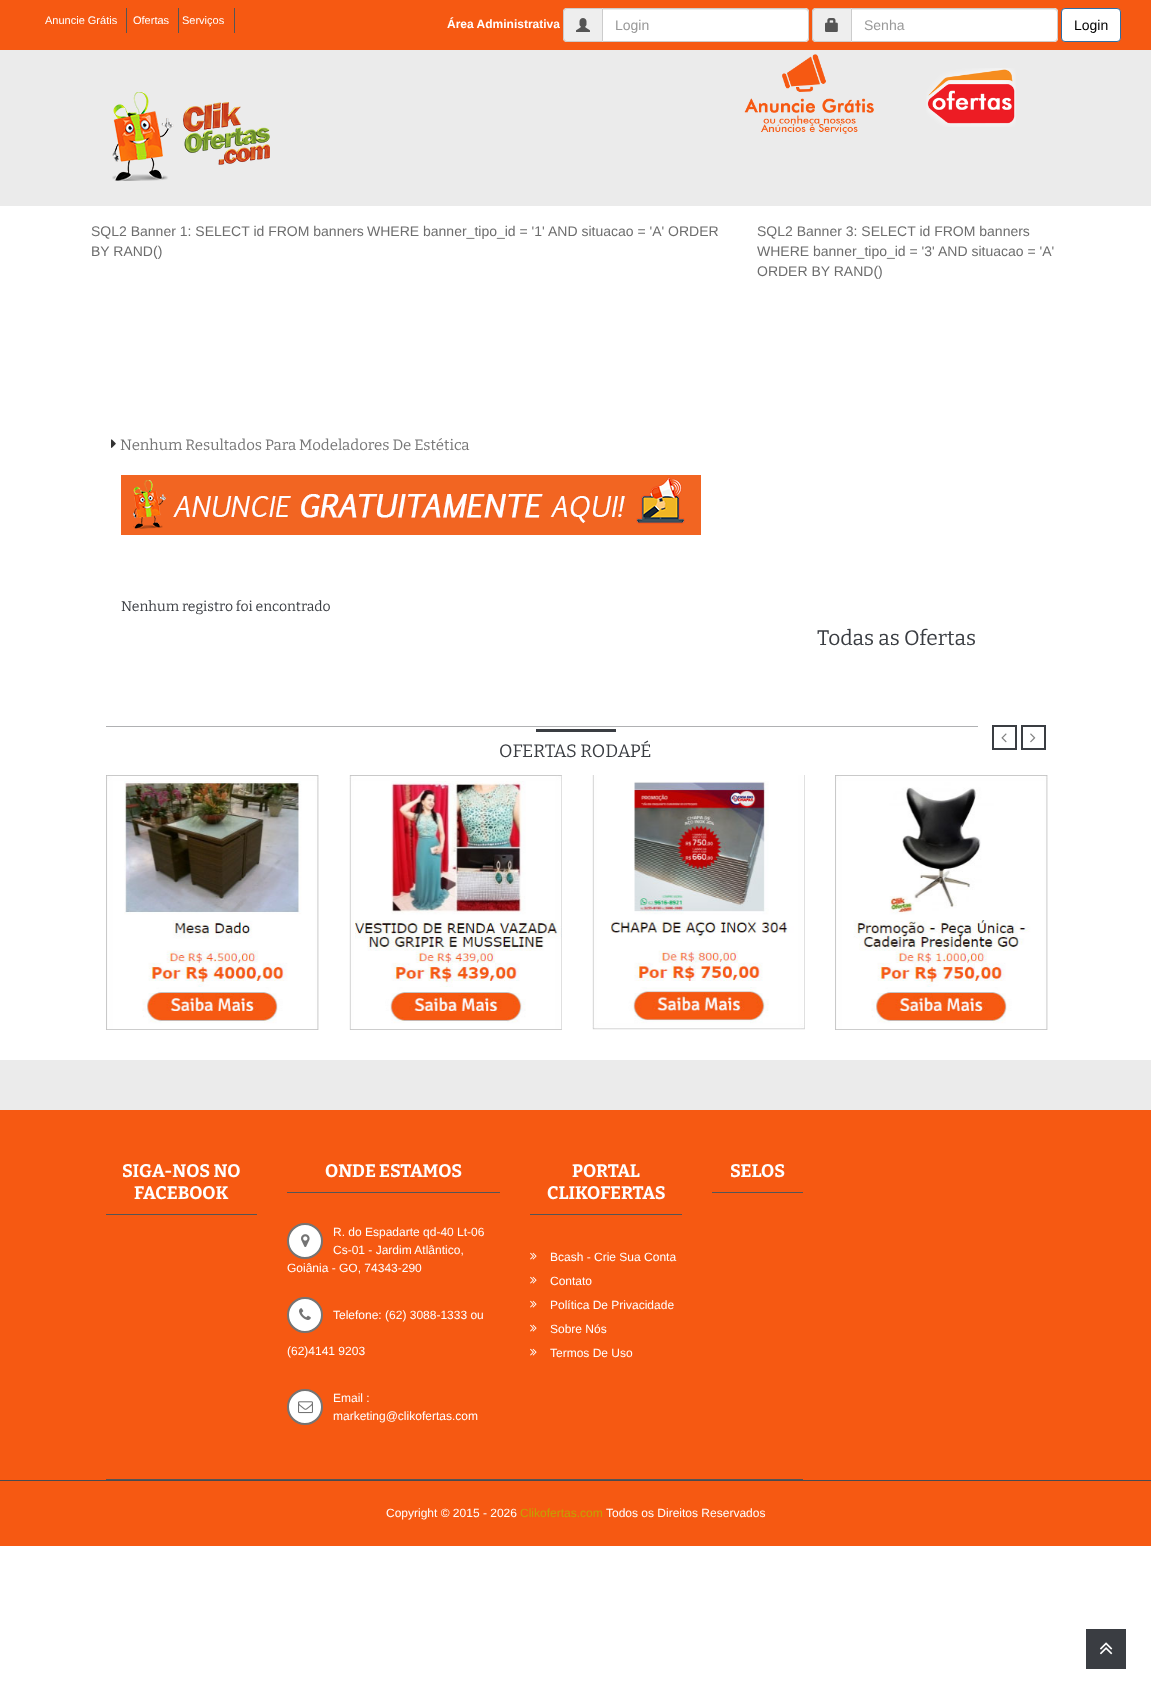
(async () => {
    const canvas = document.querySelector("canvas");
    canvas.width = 1151;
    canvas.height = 1694;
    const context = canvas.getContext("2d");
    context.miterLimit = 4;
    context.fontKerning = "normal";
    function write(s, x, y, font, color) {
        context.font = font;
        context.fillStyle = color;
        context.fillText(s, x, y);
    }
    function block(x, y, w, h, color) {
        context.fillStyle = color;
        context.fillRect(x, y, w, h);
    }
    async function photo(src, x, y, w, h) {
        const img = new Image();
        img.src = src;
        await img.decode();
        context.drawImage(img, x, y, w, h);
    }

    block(0, 0, 1151, 1694, "rgb(255, 255, 255)");
    block(0, 0, 1151, 50, "rgb(246, 89, 18)");
    block(126, 8, 1, 25, "rgb(85, 85, 85)");
    write("Anuncie Grátis", 45, 24, "11px Liberation Sans", "rgb(255, 255, 255)");
    block(178, 8, 1, 25, "rgb(85, 85, 85)");
    write("Ofertas", 133, 24, "11px Liberation Sans", "rgb(255, 255, 255)");
    block(234, 8, 1, 25, "rgb(85, 85, 85)");
    write("Serviços", 182, 24, "11px Liberation Sans", "rgb(255, 255, 255)");
    write("Área Administrativa", 447, 28, "bold 12px Liberation Sans", "rgb(255, 255, 255)");
    context.fillStyle = "rgb(238, 238, 238)";
    context.beginPath();
    context.roundRect(563, 8, 39, 34, [4, 0, 0, 4]);
    context.fill();
    context.fillStyle = "rgb(204, 204, 204)";
    context.beginPath();
    context.moveTo(567, 8);
    context.lineTo(602, 8);
    context.lineTo(602, 42);
    context.lineTo(567, 42);
    context.bezierCurveTo(565, 42, 563, 40, 563, 38);
    context.lineTo(563, 12);
    context.bezierCurveTo(563, 10, 565, 8, 567, 8);
    context.closePath();
    context.moveTo(567, 9);
    context.lineTo(602, 9);
    context.lineTo(602, 41);
    context.lineTo(567, 41);
    context.bezierCurveTo(565.5, 41, 564, 39.5, 564, 38);
    context.lineTo(564, 12);
    context.bezierCurveTo(564, 10.5, 565.5, 9, 567, 9);
    context.closePath();
    context.fill("evenodd");
    await photo("media/1.png", 576, 18, 14, 14);
    context.fillStyle = "rgb(255, 255, 255)";
    context.beginPath();
    context.roundRect(602, 8, 207, 34, [0, 4, 4, 0]);
    context.fill();
    context.fillStyle = "rgb(236, 236, 236)";
    context.beginPath();
    context.moveTo(603, 10);
    context.lineTo(805, 10);
    context.bezierCurveTo(807, 10, 808, 11, 808, 13);
    context.bezierCurveTo(808, 11, 808, 10, 806, 9);
    context.lineTo(603, 9);
    context.closePath();
    context.fill();
    context.beginPath();
    context.roundRect(602.5, 8.5, 206, 33, [0, 3.5, 3.5, 0]);
    context.strokeStyle = "rgb(204, 204, 204)";
    context.stroke();
    write("Login", 615, 30, "14px Liberation Sans", "rgb(153, 153, 153)");
    context.fillStyle = "rgb(238, 238, 238)";
    context.beginPath();
    context.roundRect(812, 8, 39, 34, [4, 0, 0, 4]);
    context.fill();
    context.fillStyle = "rgb(204, 204, 204)";
    context.beginPath();
    context.moveTo(816, 8);
    context.lineTo(851, 8);
    context.lineTo(851, 42);
    context.lineTo(816, 42);
    context.bezierCurveTo(814, 42, 812, 40, 812, 38);
    context.lineTo(812, 12);
    context.bezierCurveTo(812, 10, 814, 8, 816, 8);
    context.closePath();
    context.moveTo(816, 9);
    context.lineTo(851, 9);
    context.lineTo(851, 41);
    context.lineTo(816, 41);
    context.bezierCurveTo(814.5, 41, 813, 39.5, 813, 38);
    context.lineTo(813, 12);
    context.bezierCurveTo(813, 10.5, 814.5, 9, 816, 9);
    context.closePath();
    context.fill("evenodd");
    await photo("media/2.png", 825, 18, 13, 14);
    context.fillStyle = "rgb(255, 255, 255)";
    context.beginPath();
    context.roundRect(851, 8, 207, 34, [0, 4, 4, 0]);
    context.fill();
    context.fillStyle = "rgb(236, 236, 236)";
    context.beginPath();
    context.moveTo(852, 10);
    context.lineTo(1054, 10);
    context.bezierCurveTo(1056, 10, 1057, 11, 1057, 13);
    context.bezierCurveTo(1057, 11, 1057, 10, 1055, 9);
    context.lineTo(852, 9);
    context.closePath();
    context.fill();
    context.beginPath();
    context.roundRect(851.5, 8.5, 206, 33, [0, 3.5, 3.5, 0]);
    context.stroke();
    write("Senha", 864, 30, "14px Liberation Sans", "rgb(153, 153, 153)");
    context.fillStyle = "rgb(255, 255, 255)";
    context.beginPath();
    context.roundRect(1061.5, 8.5, 59, 33, 3.5);
    context.fill();
    context.strokeStyle = "rgb(46, 109, 164)";
    context.stroke();
    write("Login", 1074, 30, "14px Liberation Sans", "rgb(0, 0, 0)");
    block(0, 50, 1151, 156, "rgb(235, 235, 235)");
    await photo("media/3.png", 112, 92, 158, 89);
    await photo("media/4.png", 744, 54, 130, 80);
    await photo("media/5.png", 926, 68, 90, 59);
    write("SQL2 Banner 1: SELECT id FROM banners", 91, 236, "14px Liberation Sans", "rgb(109, 109, 109)");
    write("WHERE banner_tipo_id = '1'", 367, 236, "14px Liberation Sans", "rgb(109, 109, 109)");
    write("AND situacao = 'A' ORDER", 548, 236, "14px Liberation Sans", "rgb(109, 109, 109)");
    write("BY RAND()", 91, 256, "14px Liberation Sans", "rgb(109, 109, 109)");
    write("SQL2 Banner 3: SELECT id FROM banners", 757, 236, "14px Liberation Sans", "rgb(109, 109, 109)");
    write("WHERE banner_tipo_id = '3'", 757, 256, "14px Liberation Sans", "rgb(109, 109, 109)");
    write("AND situacao = 'A'", 938, 256, "14px Liberation Sans", "rgb(109, 109, 109)");
    write("ORDER BY RAND()", 757, 276, "14px Liberation Sans", "rgb(109, 109, 109)");
    await photo("media/6.png", 111, 439, 5, 9);
    write("Nenhum Resultados Para Modeladores De Estética", 120, 450, "15px Bitter", "rgb(119, 119, 119)");
    await photo("media/7.png", 121, 475, 580, 60);
    write("Nenhum registro foi encontrado", 121, 611, "14px Bitter", "rgb(58, 61, 66)");
    write("Todas as Ofertas", 817, 645, "21px Bitter", "rgb(58, 61, 66)");
    context.strokeStyle = "rgb(58, 61, 66)";
    context.lineWidth = 2;
    context.strokeRect(993, 726, 23, 23);
    await photo("media/8.png", 1001, 733, 6, 10);
    context.strokeRect(1022, 726, 23, 23);
    await photo("media/9.png", 1030, 733, 6, 10);
    await photo("media/10.png", 106, 775, 213, 255);
    await photo("media/11.png", 349, 775, 213, 255);
    await photo("media/12.png", 592, 775, 213, 255);
    await photo("media/13.png", 835, 775, 213, 255);
    block(106, 726, 872, 1, "rgb(176, 177, 179)");
    block(536, 729, 80, 3, "rgb(58, 61, 66)");
    write("OFERTAS RODAPÉ", 499, 757, "18px Bitter", "rgb(58, 61, 66)");
    block(0, 1060, 1151, 50, "rgb(235, 235, 235)");
    block(0, 1110, 1151, 370, "rgb(246, 89, 18)");
    block(106, 1479, 697, 1, "rgb(85, 85, 85)");
    block(106, 1214, 151, 1, "rgb(85, 85, 85)");
    write("SIGA-NOS NO", 122, 1177, "bold 18px Bitter", "rgb(255, 255, 255)");
    write("FACEBOOK", 134, 1199, "bold 18px Bitter", "rgb(255, 255, 255)");
    block(287, 1192, 213, 1, "rgb(85, 85, 85)");
    write("ONDE ESTAMOS", 325, 1177, "bold 18px Bitter", "rgb(255, 255, 255)");
    context.beginPath();
    context.arc(305, 1241, 17, 0, Math.PI * 2);
    context.fill();
    context.strokeStyle = "rgb(116, 116, 116)";
    context.stroke();
    await photo("media/14.png", 301, 1234, 9, 13);
    write("R. do Espadarte qd-40 Lt-06", 333, 1236, "12px Liberation Sans", "rgb(255, 255, 255)");
    write("Cs-01 - Jardim Atlântico,", 333, 1254, "12px Liberation Sans", "rgb(255, 255, 255)");
    write("Goiânia - GO, 74343-290", 287, 1272, "12px Liberation Sans", "rgb(255, 255, 255)");
    context.beginPath();
    context.arc(305, 1315, 17, 0, Math.PI * 2);
    context.fill();
    context.stroke();
    await photo("media/15.png", 299, 1308, 12, 12);
    write("Telefone: (62) 3088-1333 ou", 333, 1319, "12px Liberation Sans", "rgb(255, 255, 255)");
    write("(62)4141 9203", 287, 1355, "12px Liberation Sans", "rgb(255, 255, 255)");
    context.beginPath();
    context.arc(305, 1407, 17, 0, Math.PI * 2);
    context.fill();
    context.stroke();
    await photo("media/16.png", 298, 1401, 15, 13);
    write("Email :", 333, 1402, "12px Liberation Sans", "rgb(255, 255, 255)");
    write("marketing@clikofertas.com", 333, 1420, "12px Liberation Sans", "rgb(255, 255, 255)");
    block(530, 1214, 152, 1, "rgb(85, 85, 85)");
    write("PORTAL", 572, 1177, "bold 18px Bitter", "rgb(255, 255, 255)");
    write("CLIKOFERTAS", 547, 1199, "bold 18px Bitter", "rgb(255, 255, 255)");
    await photo("media/17.png", 530, 1252, 7, 8);
    write("Bcash - Crie Sua Conta", 550, 1261, "12px Liberation Sans", "rgb(255, 255, 255)");
    await photo("media/17.png", 530, 1276, 7, 8);
    write("Contato", 550, 1285, "12px Liberation Sans", "rgb(255, 255, 255)");
    await photo("media/17.png", 530, 1300, 7, 8);
    write("Política De Privacidade", 550, 1309, "12px Liberation Sans", "rgb(255, 255, 255)");
    await photo("media/17.png", 530, 1324, 7, 8);
    write("Sobre Nós", 550, 1333, "12px Liberation Sans", "rgb(255, 255, 255)");
    await photo("media/17.png", 530, 1348, 7, 8);
    write("Termos De Uso", 550, 1357, "12px Liberation Sans", "rgb(255, 255, 255)");
    block(712, 1192, 91, 1, "rgb(85, 85, 85)");
    write("SELOS", 730, 1177, "bold 18px Bitter", "rgb(255, 255, 255)");
    block(0, 1481, 1151, 65, "rgb(246, 89, 18)");
    block(0, 1480, 1151, 1, "rgb(72, 74, 79)");
    write("Copyright © 2015 - 2026", 386, 1517, "12px Liberation Sans", "rgb(255, 255, 255)");
    write("Clikofertas.com", 520, 1517, "12px Liberation Sans", "rgb(193, 163, 0)");
    write("Todos os Direitos Reservados", 606, 1517, "12px Liberation Sans", "rgb(255, 255, 255)");
    block(1086, 1629, 40, 40, "rgb(58, 61, 66)");
    await photo("media/18.png", 1100, 1642, 13, 13);
})();
